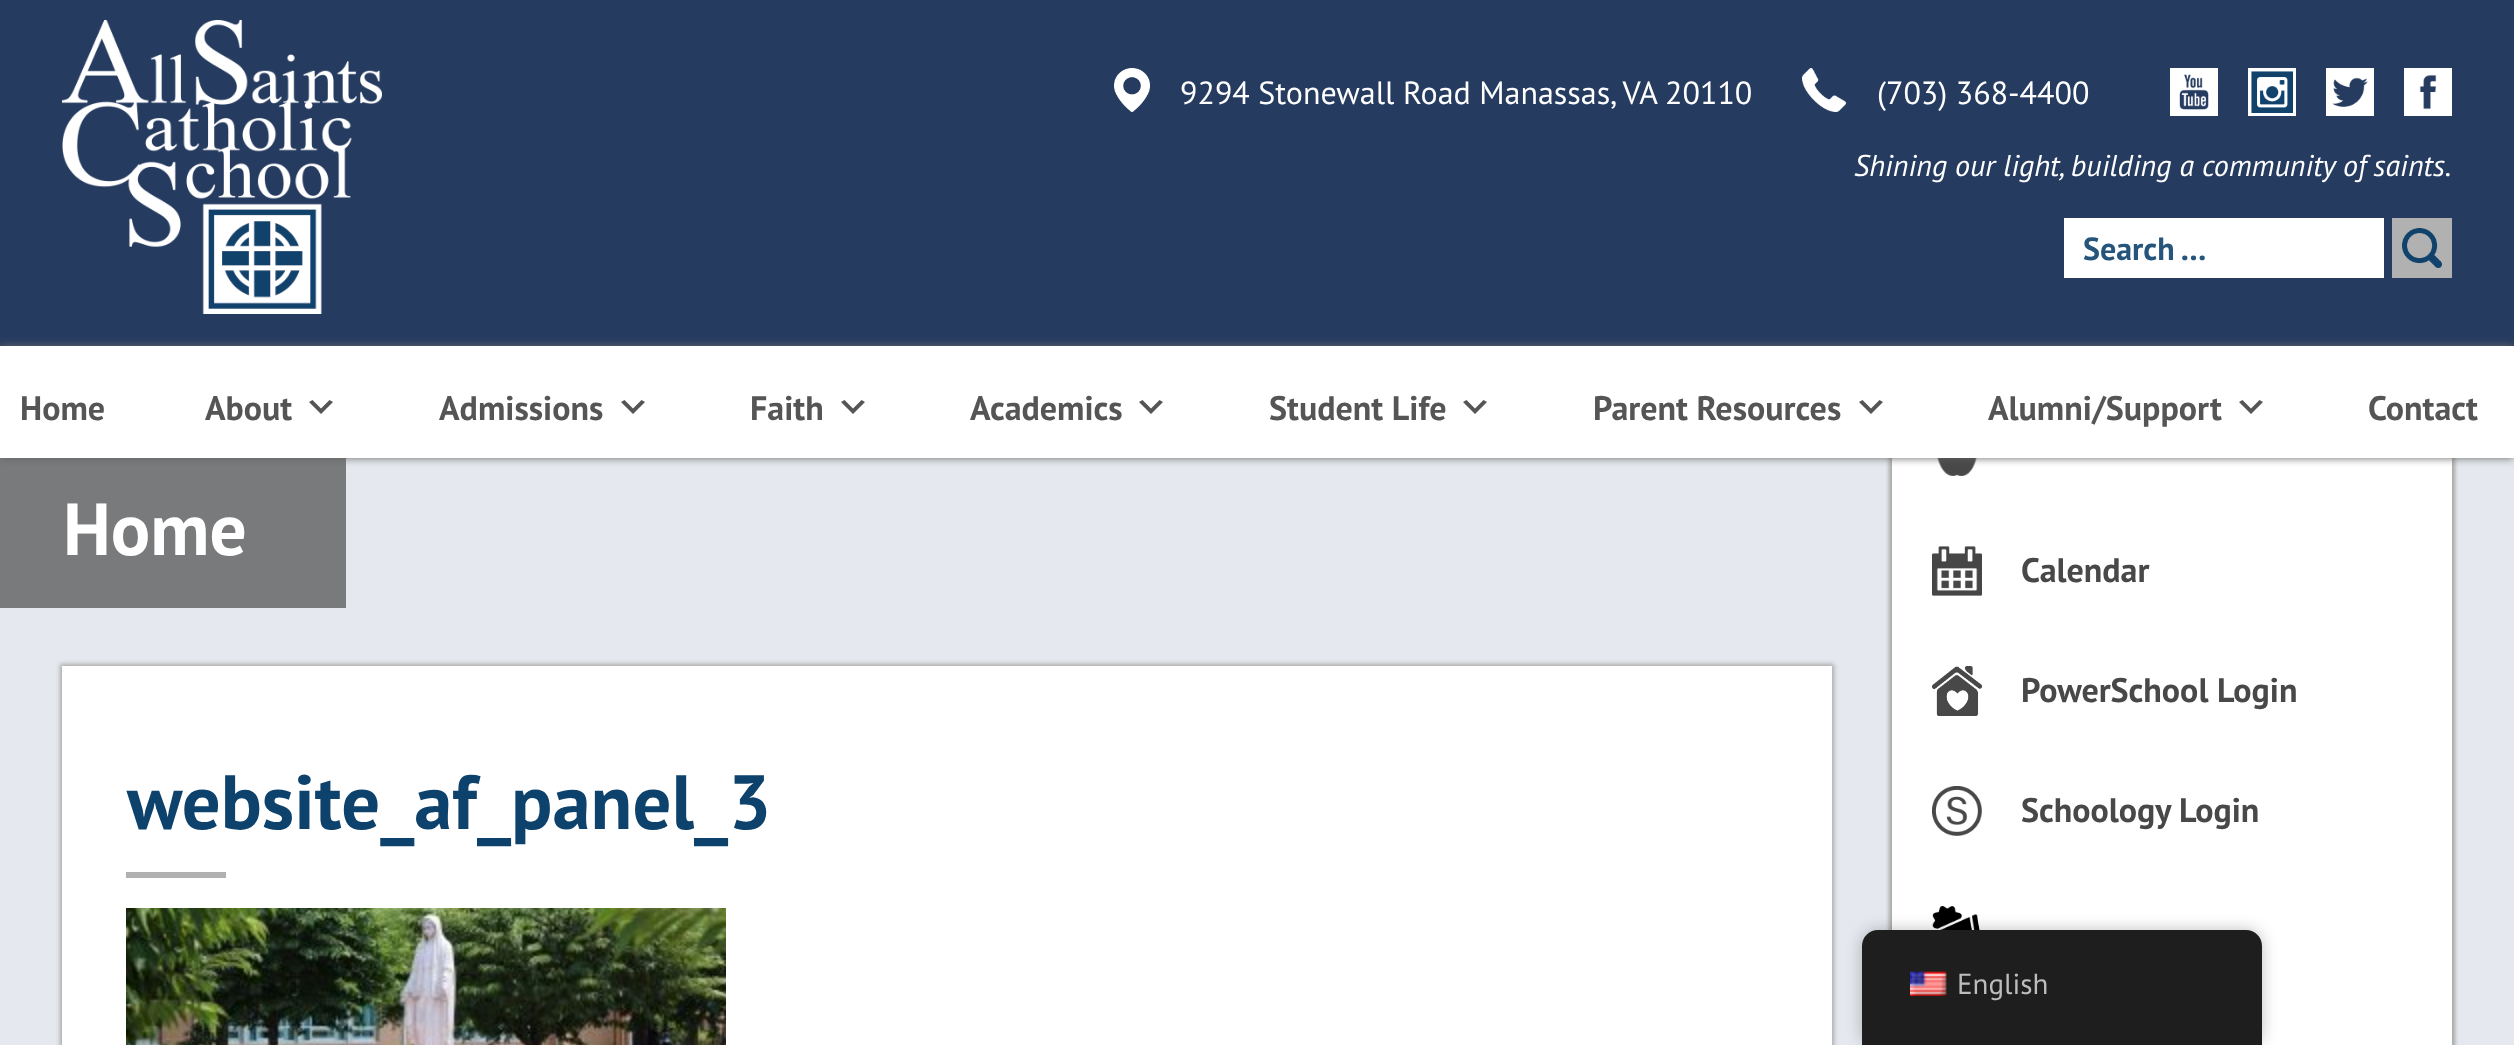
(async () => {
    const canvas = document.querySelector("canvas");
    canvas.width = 2514;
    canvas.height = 1045;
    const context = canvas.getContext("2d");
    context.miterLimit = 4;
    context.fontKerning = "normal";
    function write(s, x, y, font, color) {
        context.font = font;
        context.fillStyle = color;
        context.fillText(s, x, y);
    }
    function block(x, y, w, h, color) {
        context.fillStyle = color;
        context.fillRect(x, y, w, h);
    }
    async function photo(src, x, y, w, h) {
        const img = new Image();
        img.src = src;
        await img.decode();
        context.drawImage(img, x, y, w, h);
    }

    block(0, 0, 2514, 1045, "rgb(229, 233, 239)");
    block(0, 0, 2514, 346, "rgb(38, 59, 96)");
    await photo("media/1.png", 62, 20, 320, 294);
    await photo("media/2.png", 1114, 68, 36, 44);
    write("9294 Stonewall Road Manassas, VA 20110", 1180, 104, "32px PT Sans", "rgb(255, 255, 255)");
    await photo("media/3.png", 1802, 68, 44, 44);
    write("(703) 368-4400", 1877, 104, "32px PT Sans", "rgb(255, 255, 255)");
    await photo("media/4.png", 2170, 68, 48, 48);
    await photo("media/5.png", 2248, 68, 48, 48);
    await photo("media/6.png", 2326, 68, 48, 48);
    await photo("media/7.png", 2404, 68, 48, 48);
    write("Shining our light, building a community of saints.", 1854, 176, "italic 30px PT Sans", "rgb(255, 255, 255)");
    block(2064, 218, 320, 60, "rgb(255, 255, 255)");
    write("Search …", 2083, 260, "bold 32px PT Sans", "rgb(37, 85, 123)");
    block(2392, 218, 60, 60, "rgb(177, 177, 177)");
    await photo("media/8.png", 2402, 228, 40, 40);
    block(0, 458, 346, 150, "rgb(121, 122, 124)");
    context.fillStyle = "rgb(170, 170, 170)";
    context.filter = "blur(2px)";
    context.beginPath();
    context.rect(1890, 388, 564, 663);
    context.fill();
    context.filter = "none";
    block(1892, 458, 560, 587, "rgb(255, 255, 255)");
    context.save();
    context.beginPath();
    context.moveTo(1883, 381);
    context.lineTo(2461, 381);
    context.lineTo(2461, 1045);
    context.lineTo(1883, 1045);
    context.closePath();
    context.moveTo(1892, 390);
    context.lineTo(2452, 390);
    context.lineTo(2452, 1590);
    context.lineTo(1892, 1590);
    context.closePath();
    context.clip("evenodd");
    context.fillStyle = "rgb(170, 170, 170)";
    context.filter = "blur(2px)";
    context.beginPath();
    context.rect(1890, 388, 564, 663);
    context.fill();
    context.filter = "none";
    context.restore();
    await photo("media/10.png", 1937, 458, 40, 18);
    context.fillStyle = "rgb(102, 102, 102)";
    context.filter = "blur(4px)";
    context.beginPath();
    context.rect(0, 346, 2514, 112);
    context.fill();
    context.filter = "none";
    block(0, 346, 2514, 112, "rgb(255, 255, 255)");
    write("Home", 20, 420, "bold 34px PT Sans", "rgb(85, 85, 85)");
    write("About", 205, 420, "bold 34px PT Sans", "rgb(85, 85, 85)");
    context.beginPath();
    context.moveTo(312.5, 400);
    context.lineTo(321, 408.5);
    context.lineTo(329.5, 400);
    context.lineTo(333, 402);
    context.lineTo(321, 414);
    context.lineTo(309, 402);
    context.closePath();
    context.fill();
    write("Admissions", 439, 420, "bold 34px PT Sans", "rgb(85, 85, 85)");
    context.beginPath();
    context.moveTo(624.5, 400);
    context.lineTo(633, 408.5);
    context.lineTo(641.5, 400);
    context.lineTo(645, 402);
    context.lineTo(633, 414);
    context.lineTo(621, 402);
    context.closePath();
    context.fill();
    write("Faith", 750, 420, "bold 34px PT Sans", "rgb(85, 85, 85)");
    context.beginPath();
    context.moveTo(844.5, 400);
    context.lineTo(853, 408.5);
    context.lineTo(861.5, 400);
    context.lineTo(865, 402);
    context.lineTo(853, 414);
    context.lineTo(841, 402);
    context.closePath();
    context.fill();
    write("Academics", 970, 420, "bold 34px PT Sans", "rgb(85, 85, 85)");
    context.beginPath();
    context.moveTo(1142.5, 400);
    context.lineTo(1151, 408.5);
    context.lineTo(1159.5, 400);
    context.lineTo(1163, 402);
    context.lineTo(1151, 414);
    context.lineTo(1139, 402);
    context.closePath();
    context.fill();
    write("Student Life", 1269, 420, "bold 34px PT Sans", "rgb(85, 85, 85)");
    context.beginPath();
    context.moveTo(1466.5, 400);
    context.lineTo(1475, 408.5);
    context.lineTo(1483.5, 400);
    context.lineTo(1487, 402);
    context.lineTo(1475, 414);
    context.lineTo(1463, 402);
    context.closePath();
    context.fill();
    write("Parent Resources", 1593, 420, "bold 34px PT Sans", "rgb(85, 85, 85)");
    context.beginPath();
    context.moveTo(1862.5, 400);
    context.lineTo(1871, 408.5);
    context.lineTo(1879.5, 400);
    context.lineTo(1883, 402);
    context.lineTo(1871, 414);
    context.lineTo(1859, 402);
    context.closePath();
    context.fill();
    write("Alumni/Support", 1988, 420, "bold 34px PT Sans", "rgb(85, 85, 85)");
    context.beginPath();
    context.moveTo(2242.5, 400);
    context.lineTo(2251, 408.5);
    context.lineTo(2259.5, 400);
    context.lineTo(2263, 402);
    context.lineTo(2251, 414);
    context.lineTo(2239, 402);
    context.closePath();
    context.fill();
    write("Contact", 2368, 420, "bold 34px PT Sans", "rgb(85, 85, 85)");
    write("Home", 63, 555, "bold 73.5px PT Sans", "rgb(255, 255, 255)");
    context.fillStyle = "rgb(170, 170, 170)";
    context.filter = "blur(2px)";
    context.beginPath();
    context.rect(60, 664, 1774, 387);
    context.fill();
    context.filter = "none";
    block(62, 666, 1770, 379, "rgb(255, 255, 255)");
    write("website_af_panel_3", 127, 829, "bold 76.75px PT Sans", "rgb(13, 66, 108)");
    block(126, 872, 100, 6, "rgb(177, 177, 177)");
    await photo("media/9.png", 126, 908, 600, 137);
    await photo("media/11.png", 1932, 546, 50, 50);
    write("Calendar", 2021, 582, "bold 34px PT Sans", "rgb(72, 72, 72)");
    await photo("media/12.png", 1932, 666, 50, 50);
    write("PowerSchool Login", 2021, 702, "bold 34px PT Sans", "rgb(72, 72, 72)");
    await photo("media/13.png", 1932, 786, 50, 50);
    write("Schoology Login", 2021, 822, "bold 34px PT Sans", "rgb(72, 72, 72)");
    await photo("media/14.png", 1932, 906, 48, 24);
    context.fillStyle = "rgba(0, 0, 0, 0.25)";
    context.filter = "blur(8px)";
    context.beginPath();
    context.roundRect(1862, 930, 400, 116, 16);
    context.fill();
    context.filter = "none";
    context.fillStyle = "rgb(30, 30, 30)";
    context.beginPath();
    context.moveTo(1878, 930);
    context.lineTo(2246, 930);
    context.bezierCurveTo(2255, 930, 2262, 937, 2262, 946);
    context.lineTo(2262, 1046);
    context.lineTo(1862, 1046);
    context.lineTo(1862, 946);
    context.bezierCurveTo(1862, 937, 1869, 930, 1878, 930);
    context.closePath();
    context.fill();
    await photo("media/15.png", 1910, 971, 37, 25);
    write("English", 1957, 994, "29px PT Sans", "rgb(189, 189, 189)");
})();
